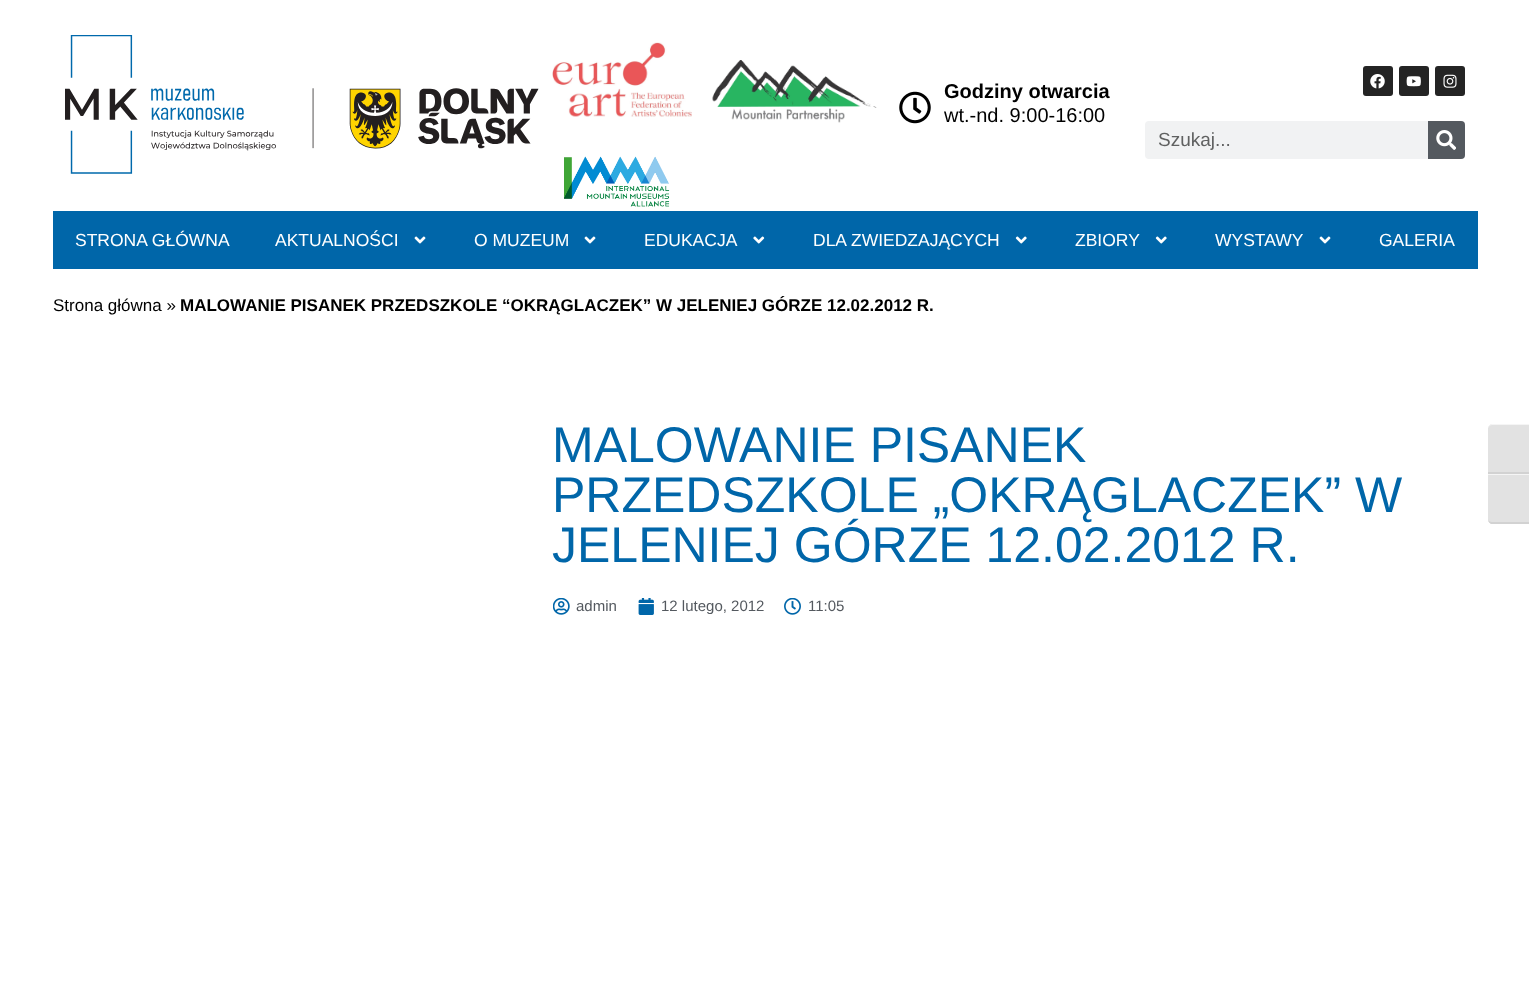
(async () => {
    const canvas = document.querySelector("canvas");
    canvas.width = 1529;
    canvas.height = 986;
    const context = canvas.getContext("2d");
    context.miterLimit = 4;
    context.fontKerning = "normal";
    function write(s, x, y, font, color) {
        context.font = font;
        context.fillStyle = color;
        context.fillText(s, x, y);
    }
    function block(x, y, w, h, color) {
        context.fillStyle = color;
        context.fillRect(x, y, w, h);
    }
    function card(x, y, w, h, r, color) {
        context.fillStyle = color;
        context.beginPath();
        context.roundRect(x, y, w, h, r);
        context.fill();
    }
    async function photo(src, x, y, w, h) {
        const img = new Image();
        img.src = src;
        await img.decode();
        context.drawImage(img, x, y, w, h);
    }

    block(0, 0, 1529, 986, "rgb(255, 255, 255)");
    await photo("media/1.png", 65, 35, 474, 139);
    await photo("media/2.png", 552, 42, 140, 75);
    await photo("media/3.png", 712, 60, 165, 63);
    await photo("media/4.png", 564, 156, 106, 51);
    await photo("media/5.png", 899, 91, 32, 33);
    write("Godziny otwarcia", 944, 98, "bold 20px Liberation Sans", "rgb(0, 0, 0)");
    write("wt.-nd. 9:00-16:00", 944, 122, "20px Liberation Sans", "rgb(0, 0, 0)");
    card(1363, 66, 30, 30, 3, "rgb(36, 36, 36)");
    await photo("media/6.png", 1370, 74, 15, 15);
    card(1399, 66, 30, 30, 3, "rgb(36, 36, 36)");
    await photo("media/7.png", 1406, 76, 15, 11);
    card(1435, 66, 30, 30, 3, "rgb(36, 36, 36)");
    await photo("media/8.png", 1443, 74, 14, 14);
    card(1145, 121, 320, 38, 4, "rgb(241, 242, 243)");
    write("Szukaj...", 1158, 146, "19px Liberation Sans", "rgb(96, 97, 97)");
    context.fillStyle = "rgb(84, 89, 95)";
    context.beginPath();
    context.roundRect(1428, 121, 37, 38, [0, 4, 4, 0]);
    context.fill();
    await photo("media/9.png", 1436, 130, 20, 20);
    block(53, 211, 1425, 58, "rgb(0, 102, 169)");
    write("STRONA GŁÓWNA", 75, 246, "17.5px Liberation Sans", "rgb(255, 255, 255)");
    write("AKTUALNOŚCI", 275, 246, "17.5px Liberation Sans", "rgb(255, 255, 255)");
    await photo("media/10.png", 414, 236, 12, 8);
    write("O MUZEUM", 474, 246, "17.5px Liberation Sans", "rgb(255, 255, 255)");
    await photo("media/10.png", 584, 236, 12, 8);
    write("EDUKACJA", 644, 246, "17.5px Liberation Sans", "rgb(255, 255, 255)");
    await photo("media/11.png", 753, 236, 12, 8);
    write("DLA ZWIEDZAJĄCYCH", 813, 246, "17.5px Liberation Sans", "rgb(255, 255, 255)");
    await photo("media/12.png", 1015, 236, 12, 8);
    write("ZBIORY", 1075, 246, "17.5px Liberation Sans", "rgb(255, 255, 255)");
    await photo("media/12.png", 1155, 236, 12, 8);
    write("WYSTAWY", 1215, 246, "17.5px Liberation Sans", "rgb(255, 255, 255)");
    await photo("media/10.png", 1319, 236, 12, 8);
    write("GALERIA", 1379, 246, "17.5px Liberation Sans", "rgb(255, 255, 255)");
    write("Strona główna »", 53, 311, "17px Liberation Sans", "rgb(0, 0, 0)");
    write("MALOWANIE PISANEK PRZEDSZKOLE “OKRĄGLACZEK” W JELENIEJ GÓRZE 12.02.2012 R.", 180, 311, "bold 17px Liberation Sans", "rgb(0, 0, 0)");
    write("MALOWANIE PISANEK", 552, 462, "50px Liberation Sans", "rgb(0, 102, 169)");
    write("PRZEDSZKOLE „OKRĄGLACZEK” W", 552, 512, "50px Liberation Sans", "rgb(0, 102, 169)");
    write("JELENIEJ GÓRZE 12.02.2012 R.", 552, 562, "50px Liberation Sans", "rgb(0, 102, 169)");
    await photo("media/13.png", 553, 598, 17, 17);
    write("admin", 576, 611, "15px Liberation Sans", "rgb(84, 89, 95)");
    await photo("media/14.png", 638, 598, 16, 17);
    write("12 lutego, 2012", 661, 611, "15px Liberation Sans", "rgb(84, 89, 95)");
    await photo("media/15.png", 784, 598, 17, 17);
    write("11:05", 808, 611, "15px Liberation Sans", "rgb(84, 89, 95)");
    context.fillStyle = "rgb(226, 226, 226)";
    context.beginPath();
    context.moveTo(1493, 424);
    context.lineTo(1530, 424);
    context.lineTo(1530, 474);
    context.lineTo(1488, 474);
    context.lineTo(1488, 429);
    context.bezierCurveTo(1488, 426, 1490, 424, 1493, 424);
    context.closePath();
    context.fill();
    context.fillStyle = "rgb(245, 245, 245)";
    context.beginPath();
    context.moveTo(1492, 424);
    context.bezierCurveTo(1490, 424, 1488, 426, 1488, 429);
    context.bezierCurveTo(1488, 427, 1490, 425, 1492, 425);
    context.lineTo(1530, 425);
    context.lineTo(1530, 424);
    context.closePath();
    context.fill();
    block(1488, 472, 41, 2, "rgb(210, 210, 210)");
    context.fillStyle = "rgb(226, 226, 226)";
    context.beginPath();
    context.moveTo(1488, 474);
    context.lineTo(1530, 474);
    context.lineTo(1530, 524);
    context.lineTo(1493, 524);
    context.bezierCurveTo(1490, 524, 1488, 522, 1488, 519);
    context.closePath();
    context.fill();
    block(1488, 474, 41, 1, "rgb(245, 245, 245)");
    context.fillStyle = "rgb(210, 210, 210)";
    context.beginPath();
    context.moveTo(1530, 524);
    context.lineTo(1491, 524);
    context.bezierCurveTo(1489, 523, 1488, 521, 1488, 519);
    context.bezierCurveTo(1488, 521, 1490, 522, 1492, 522);
    context.lineTo(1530, 522);
    context.closePath();
    context.fill();
})();
